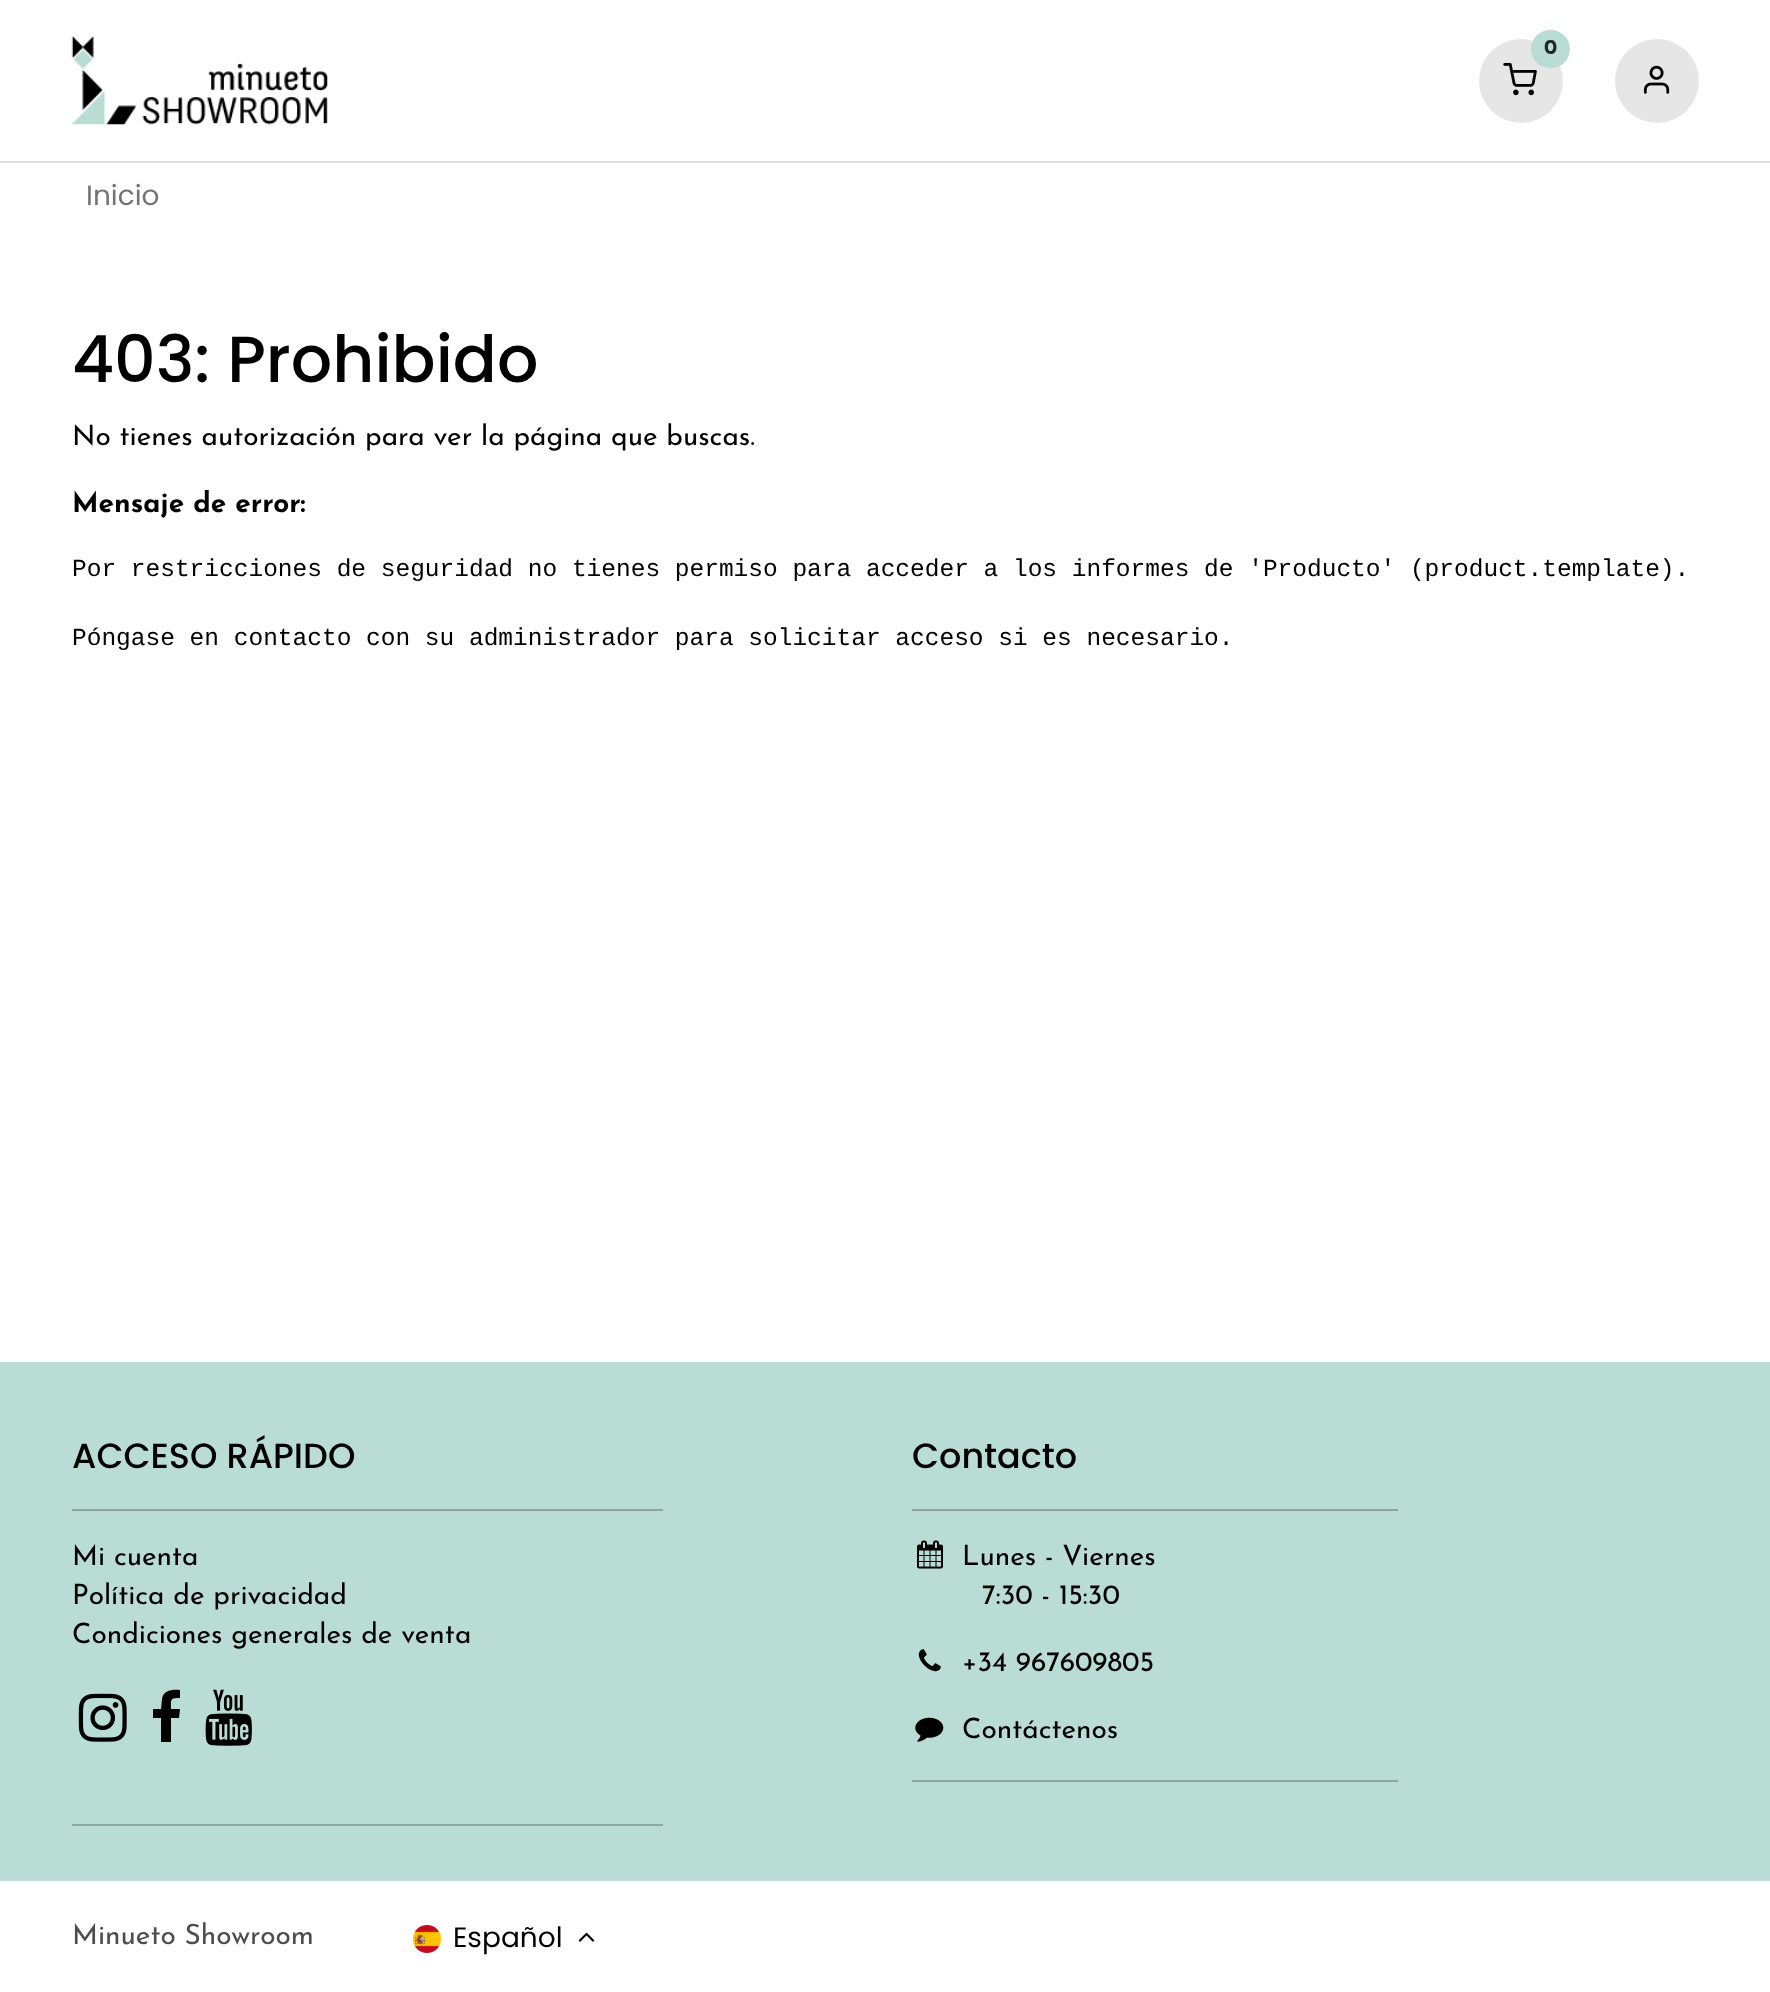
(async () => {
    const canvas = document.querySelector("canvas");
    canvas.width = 1770;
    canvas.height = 1992;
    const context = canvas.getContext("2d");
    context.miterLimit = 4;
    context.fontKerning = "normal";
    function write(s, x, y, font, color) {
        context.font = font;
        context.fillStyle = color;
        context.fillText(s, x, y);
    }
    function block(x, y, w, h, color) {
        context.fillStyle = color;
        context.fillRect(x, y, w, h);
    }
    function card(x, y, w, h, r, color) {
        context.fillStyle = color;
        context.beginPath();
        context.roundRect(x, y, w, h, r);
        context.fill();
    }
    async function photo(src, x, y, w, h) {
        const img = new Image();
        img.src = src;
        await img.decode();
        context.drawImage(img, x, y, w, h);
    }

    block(0, 0, 1770, 1992, "rgb(255, 255, 255)");
    block(0, 161, 1770, 2, "rgb(224, 224, 224)");
    await photo("media/1.png", 71, 36, 257, 89);
    context.fillStyle = "rgb(230, 230, 230)";
    context.beginPath();
    context.arc(1521, 81, 42, 0, Math.PI * 2);
    context.fill();
    await photo("media/2.png", 1503, 63, 34, 33);
    card(1531, 30, 39, 38, 19, "rgb(185, 221, 213)");
    write("0", 1544, 54, "bold 21px Josefin Sans", "rgb(33, 37, 41)");
    context.fillStyle = "rgb(230, 230, 230)";
    context.beginPath();
    context.arc(1657, 81, 42, 0, Math.PI * 2);
    context.fill();
    await photo("media/3.png", 1643, 65, 27, 29);
    write("Inicio", 86, 205, "28px Poppins", "rgb(115, 115, 115)");
    write("403: Prohibido", 72, 382, "500 65px Poppins", "rgb(0, 0, 0)");
    write("No tienes autorización para ver la página que buscas.", 72, 445, "28px Josefin Sans", "rgb(0, 0, 0)");
    write("Mensaje de error:", 72, 512, "bold 28px Josefin Sans", "rgb(0, 0, 0)");
    write("Por restricciones de seguridad no tienes permiso para acceder a los informes de 'Producto' (product.template).", 72, 576, "24.5px Liberation Mono", "rgb(0, 0, 0)");
    write("Póngase en contacto con su administrador para solicitar acceso si es necesario.", 72, 645, "24.5px Liberation Mono", "rgb(0, 0, 0)");
    block(0, 1362, 1770, 519, "rgb(185, 221, 213)");
    write("ACCESO RÁPIDO", 72, 1468, "500 35px Poppins", "rgb(0, 0, 0)");
    block(72, 1509, 591, 2, "rgb(139, 166, 160)");
    write("Mi cuenta", 72, 1565, "28px Josefin Sans", "rgb(0, 0, 0)");
    write("Política de privacidad", 72, 1604, "28px Josefin Sans", "rgb(0, 0, 0)");
    write("Condiciones generales de venta", 72, 1643, "28px Josefin Sans", "rgb(0, 0, 0)");
    await photo("media/4.png", 78, 1693, 49, 49);
    context.beginPath();
    context.moveTo(180, 1690);
    context.lineTo(180, 1698);
    context.bezierCurveTo(170, 1698, 171, 1699, 171, 1709);
    context.lineTo(180, 1709);
    context.lineTo(179, 1718);
    context.lineTo(171, 1718);
    context.lineTo(171, 1742);
    context.lineTo(161, 1742);
    context.lineTo(161, 1718);
    context.lineTo(153, 1718);
    context.lineTo(153, 1709);
    context.lineTo(161, 1709);
    context.lineTo(162, 1699);
    context.bezierCurveTo(163, 1690, 173, 1689, 180, 1690);
    context.closePath();
    context.fill();
    await photo("media/5.png", 205, 1689, 47, 57);
    block(72, 1824, 591, 2, "rgb(139, 166, 160)");
    write("Contacto", 912, 1468, "500 35px Poppins", "rgb(0, 0, 0)");
    block(912, 1509, 486, 2, "rgb(139, 166, 160)");
    await photo("media/6.png", 917, 1540, 26, 29);
    write("Lunes - Viernes", 962, 1565, "28px Josefin Sans", "rgb(0, 0, 0)");
    write("7:30 - 15:30", 982, 1604, "28px Josefin Sans", "rgb(0, 0, 0)");
    await photo("media/7.png", 918, 1649, 23, 23);
    write("+34 967609805", 962, 1671, "28px Josefin Sans", "rgb(0, 0, 0)");
    await photo("media/8.png", 915, 1717, 29, 25);
    write("Contáctenos", 962, 1738, "28px Josefin Sans", "rgb(0, 0, 0)");
    block(912, 1780, 486, 2, "rgb(139, 166, 160)");
    write("Minueto Showroom", 72, 1944, "28px Josefin Sans", "rgb(77, 77, 77)");
    await photo("media/9.png", 413, 1925, 28, 28);
    write("Español", 453, 1947, "28px Poppins", "rgb(0, 0, 0)");
    await photo("media/10.png", 578, 1932, 17, 10);
})();
